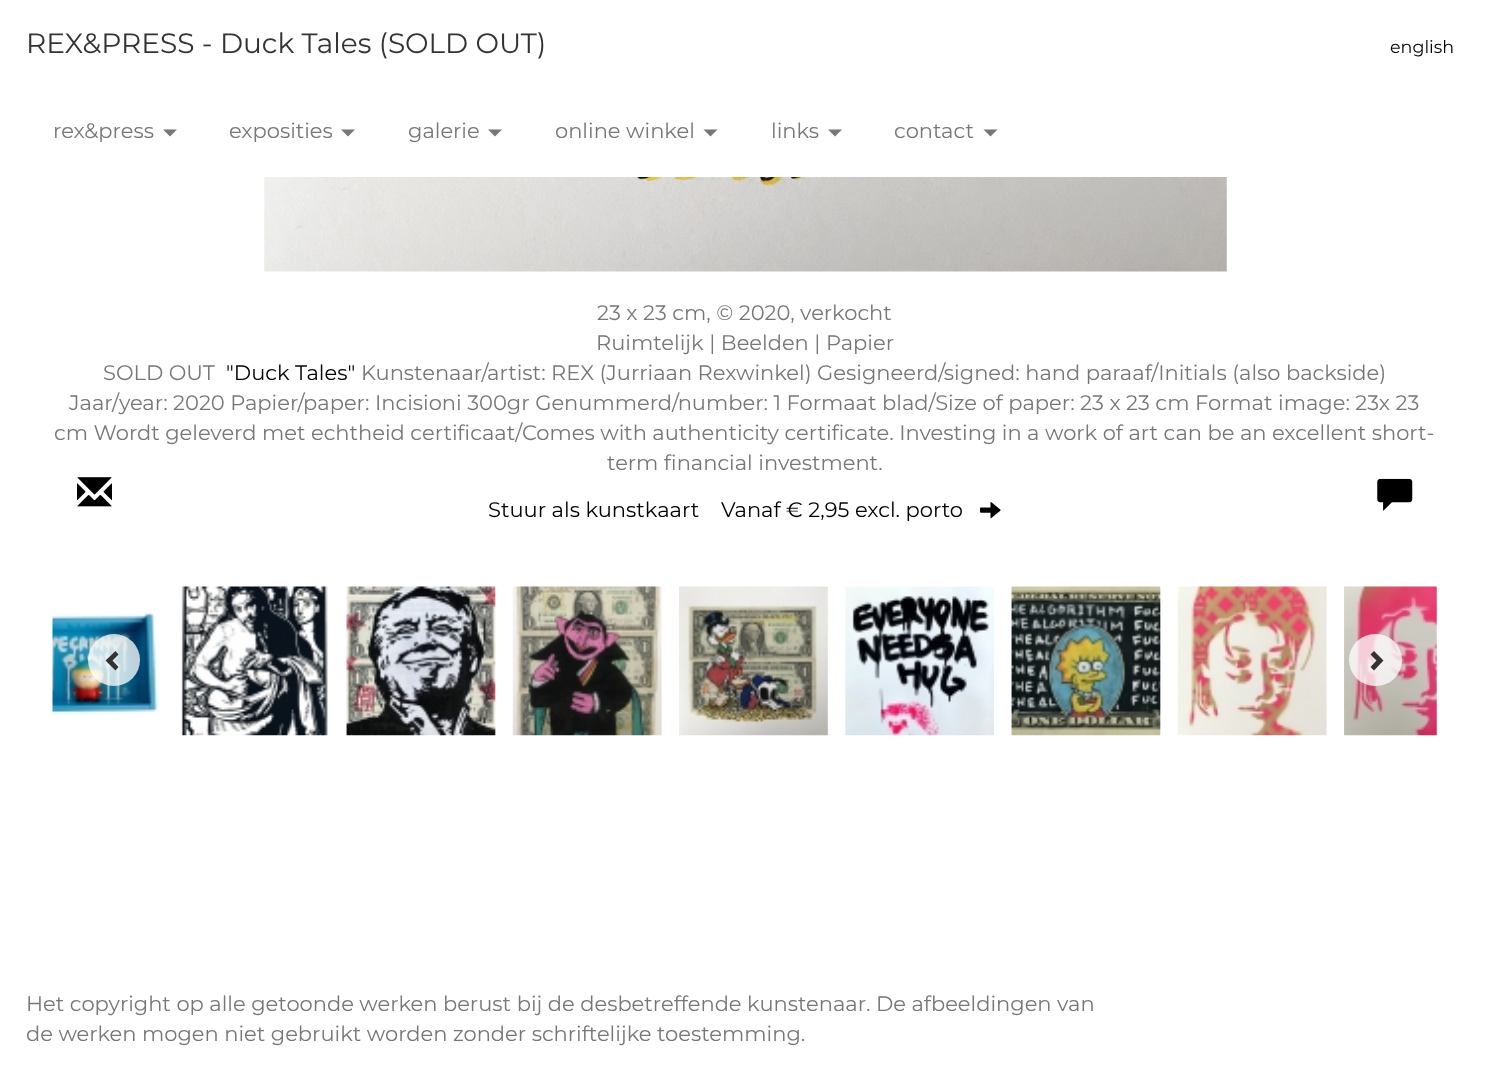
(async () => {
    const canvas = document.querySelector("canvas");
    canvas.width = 1489;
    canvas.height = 1083;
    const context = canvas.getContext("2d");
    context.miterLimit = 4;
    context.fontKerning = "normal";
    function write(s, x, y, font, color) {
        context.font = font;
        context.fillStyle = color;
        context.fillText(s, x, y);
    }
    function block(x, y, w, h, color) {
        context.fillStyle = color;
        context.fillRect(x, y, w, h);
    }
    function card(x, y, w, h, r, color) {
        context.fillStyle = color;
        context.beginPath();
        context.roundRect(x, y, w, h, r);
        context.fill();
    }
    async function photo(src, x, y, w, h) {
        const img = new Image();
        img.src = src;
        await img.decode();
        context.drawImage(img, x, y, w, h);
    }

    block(0, 0, 1489, 1083, "rgb(255, 255, 255)");
    write("REX&PRESS - Duck Tales (SOLD OUT)", 26, 53, "100 28px Montserrat", "rgb(51, 51, 51)");
    write("english", 1390, 53, "100 17.5px Montserrat", "rgb(0, 0, 0)");
    write("rex&press", 53, 138, "100 21px Montserrat", "rgb(119, 119, 119)");
    context.beginPath();
    context.moveTo(163, 129.5);
    context.lineTo(177, 129.5);
    context.lineTo(170, 136.5);
    context.closePath();
    context.fill();
    write("exposities", 229, 138, "100 21px Montserrat", "rgb(119, 119, 119)");
    context.beginPath();
    context.moveTo(341, 129.5);
    context.lineTo(355, 129.5);
    context.lineTo(348, 136.5);
    context.closePath();
    context.fill();
    write("galerie", 408, 138, "100 21px Montserrat", "rgb(119, 119, 119)");
    context.beginPath();
    context.moveTo(488, 129.5);
    context.lineTo(502, 129.5);
    context.lineTo(495, 136.5);
    context.closePath();
    context.fill();
    write("online winkel", 555, 138, "100 21px Montserrat", "rgb(119, 119, 119)");
    context.beginPath();
    context.moveTo(703.5, 129.5);
    context.lineTo(717.5, 129.5);
    context.lineTo(710.5, 136.5);
    context.closePath();
    context.fill();
    write("links", 771, 138, "100 21px Montserrat", "rgb(119, 119, 119)");
    context.beginPath();
    context.moveTo(828, 129.5);
    context.lineTo(842, 129.5);
    context.lineTo(835, 136.5);
    context.closePath();
    context.fill();
    write("contact", 894, 138, "100 21px Montserrat", "rgb(119, 119, 119)");
    context.beginPath();
    context.moveTo(983.5, 129.5);
    context.lineTo(997.5, 129.5);
    context.lineTo(990.5, 136.5);
    context.closePath();
    context.fill();
    await photo("media/1.png", 264, 177, 963, 95);
    write("23 x 23 cm, © 2020, verkocht", 597, 320, "100 21px Montserrat", "rgb(119, 119, 119)");
    write("Ruimtelijk | Beelden | Papier", 596, 350, "100 21px Montserrat", "rgb(119, 119, 119)");
    write("SOLD OUT", 103, 380, "100 21px Montserrat", "rgb(119, 119, 119)");
    write("\"Duck Tales\"", 226, 380, "100 21px Montserrat", "rgb(0, 0, 0)");
    write("Kunstenaar/artist: REX (Jurriaan Rexwinkel) Gesigneerd/signed: hand paraaf/Initials (also backside)", 361, 380, "100 21px Montserrat", "rgb(119, 119, 119)");
    write("Jaar/year: 2020 Papier/paper: Incisioni 300gr Genummerd/number: 1 Formaat blad/Size of paper: 23 x 23 cm Format image: 23x 23", 69, 410, "100 21px Montserrat", "rgb(119, 119, 119)");
    write("cm Wordt geleverd met echtheid certificaat/Comes with authenticity certificate. Investing in a work of art can be an excellent short-", 54, 440, "100 21px Montserrat", "rgb(119, 119, 119)");
    write("term financial investment.", 607, 470, "100 21px Montserrat", "rgb(119, 119, 119)");
    await photo("media/2.png", 77, 477, 35, 30);
    write("Stuur als kunstkaart", 488, 517, "100 21px Montserrat", "rgb(0, 0, 0)");
    write("Vanaf € 2,95 excl. porto", 721, 517, "100 21px Montserrat", "rgb(0, 0, 0)");
    await photo("media/3.png", 980, 502, 21, 17);
    await photo("media/4.png", 1377, 478, 36, 33);
    await photo("media/5.png", 52, 612, 107, 104);
    await photo("media/6.png", 180, 586, 149, 150);
    await photo("media/7.png", 346, 586, 150, 150);
    await photo("media/8.png", 512, 586, 150, 150);
    await photo("media/9.png", 679, 586, 149, 150);
    await photo("media/10.png", 845, 586, 149, 150);
    await photo("media/11.png", 1011, 586, 150, 150);
    await photo("media/12.png", 1177, 586, 150, 150);
    await photo("media/13.png", 1344, 586, 93, 150);
    context.fillStyle = "rgba(255, 255, 255, 0.75)";
    context.beginPath();
    context.arc(114, 660, 26, 0, Math.PI * 2);
    context.fill();
    context.fillStyle = "rgb(51, 51, 51)";
    context.beginPath();
    context.moveTo(118.5, 654.5);
    context.lineTo(112.5, 660.5);
    context.lineTo(118.5, 667);
    context.lineTo(115.5, 670.5);
    context.lineTo(105.5, 660.5);
    context.lineTo(115.5, 651);
    context.closePath();
    context.fill();
    card(1349, 634, 53, 52, 26, "rgba(255, 255, 255, 0.75)");
    context.fillStyle = "rgb(51, 51, 51)";
    context.beginPath();
    context.moveTo(1383.5, 660.5);
    context.lineTo(1374, 670.5);
    context.lineTo(1370.5, 667);
    context.lineTo(1376.5, 660.5);
    context.lineTo(1370.5, 654.5);
    context.lineTo(1374, 651);
    context.closePath();
    context.fill();
    write("Het copyright op alle getoonde werken berust bij de desbetreffende kunstenaar. De afbeeldingen van", 26, 1011, "100 21px Montserrat", "rgb(119, 119, 119)");
    write("de werken mogen niet gebruikt worden zonder schriftelijke toestemming.", 26, 1041, "100 21px Montserrat", "rgb(119, 119, 119)");
})();
